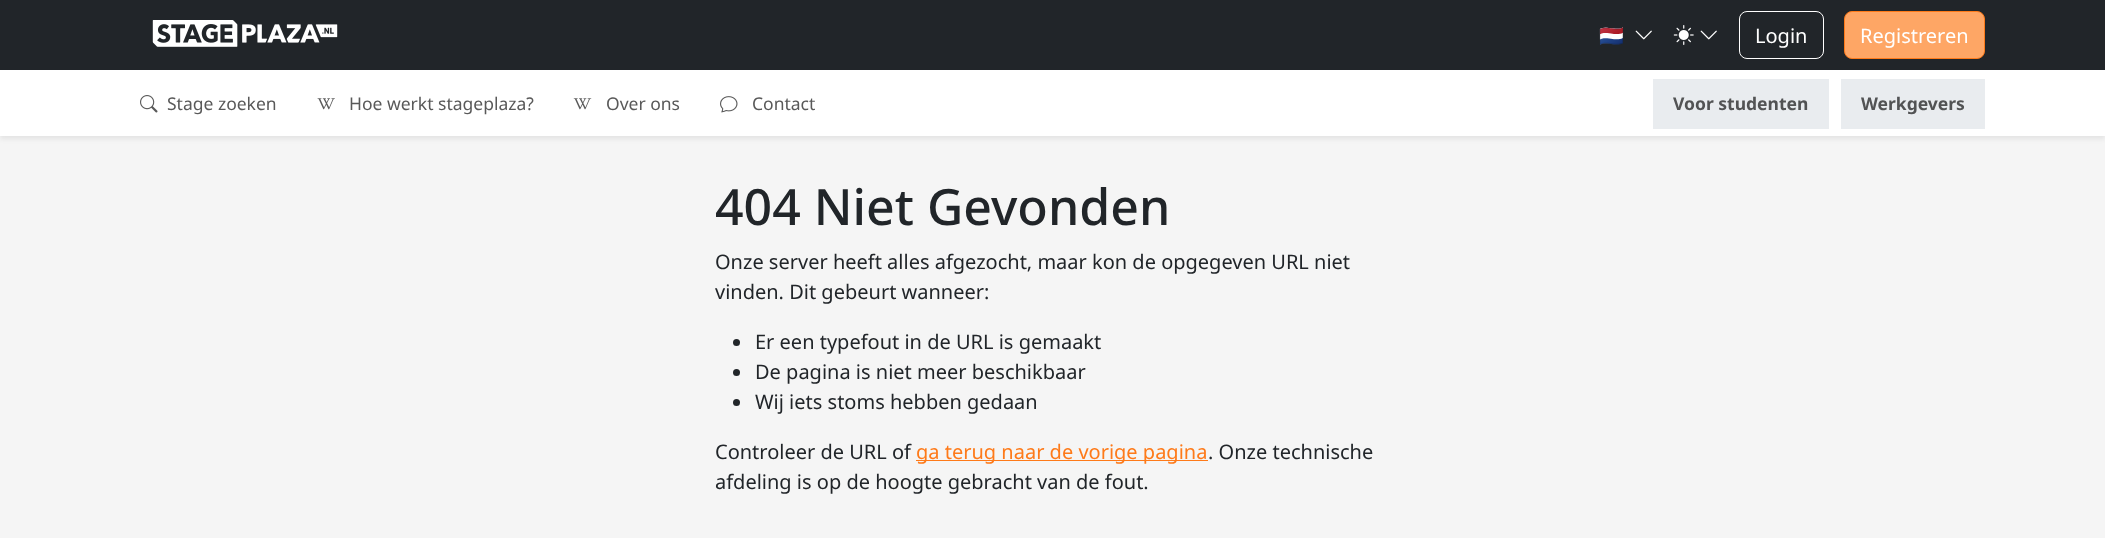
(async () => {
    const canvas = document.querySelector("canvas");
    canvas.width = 2105;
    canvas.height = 538;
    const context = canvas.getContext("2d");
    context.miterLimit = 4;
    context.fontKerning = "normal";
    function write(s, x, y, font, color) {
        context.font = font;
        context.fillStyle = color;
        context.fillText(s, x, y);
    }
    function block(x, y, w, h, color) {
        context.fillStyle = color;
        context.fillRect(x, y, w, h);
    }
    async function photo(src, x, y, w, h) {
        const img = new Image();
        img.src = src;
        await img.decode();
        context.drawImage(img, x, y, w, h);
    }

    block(0, 0, 2105, 538, "rgb(245, 245, 245)");
    context.fillStyle = "rgba(0, 0, 0, 0.07)";
    context.filter = "blur(2.5px)";
    context.beginPath();
    context.rect(0, 3, 2105, 136);
    context.fill();
    context.filter = "none";
    block(0, 70, 2105, 66, "rgb(255, 255, 255)");
    block(0, 0, 2105, 70, "rgb(33, 37, 41)");
    await photo("media/1.png", 152, 20, 186, 27);
    write("🇳🇱", 1599, 43, "bold 20px Noto Color Emoji", "rgb(255, 255, 255)");
    await photo("media/2.png", 1635, 30, 17, 10);
    await photo("media/3.png", 1673, 25, 21, 20);
    await photo("media/2.png", 1700, 30, 17, 10);
    context.beginPath();
    context.roundRect(1739.5, 11.5, 84, 47, 7.5);
    context.strokeStyle = "rgb(255, 255, 255)";
    context.stroke();
    write("Login", 1755, 43, "20px Noto Sans", "rgb(255, 255, 255)");
    context.fillStyle = "rgb(254, 166, 101)";
    context.beginPath();
    context.roundRect(1844.5, 11.5, 140, 47, 7.5);
    context.fill();
    context.strokeStyle = "rgb(254, 122, 25)";
    context.stroke();
    write("Registreren", 1860, 43, "20px Noto Sans", "rgb(255, 255, 255)");
    await photo("media/4.png", 140, 95, 18, 18);
    write("Stage zoeken", 167, 110, "17.5px Noto Sans", "rgb(89, 89, 89)");
    await photo("media/5.png", 317, 98, 18, 12);
    write("Hoe werkt stageplaza?", 349, 110, "17.5px Noto Sans", "rgb(89, 89, 89)");
    await photo("media/6.png", 573, 98, 19, 12);
    write("Over ons", 606, 110, "17.5px Noto Sans", "rgb(89, 89, 89)");
    await photo("media/7.png", 720, 96, 18, 17);
    write("Contact", 752, 110, "17.5px Noto Sans", "rgb(89, 89, 89)");
    block(1653, 79, 176, 50, "rgb(233, 236, 239)");
    write("Voor studenten", 1673, 110, "bold 17.5px Noto Sans", "rgb(82, 83, 84)");
    block(1841, 79, 144, 50, "rgb(233, 236, 239)");
    write("Werkgevers", 1861, 110, "bold 17.5px Noto Sans", "rgb(82, 83, 84)");
    write("404 Niet Gevonden", 715, 225, "500 50px Noto Sans", "rgb(33, 37, 41)");
    write("Onze server heeft alles afgezocht, maar kon de opgegeven URL niet", 715, 269, "20px Noto Sans", "rgb(33, 37, 41)");
    write("vinden. Dit gebeurt wanneer:", 715, 299, "20px Noto Sans", "rgb(33, 37, 41)");
    context.beginPath();
    context.arc(736.5, 342.5, 3.5, 0, Math.PI * 2);
    context.fill();
    write("Er een typefout in de URL is gemaakt", 755, 349, "20px Noto Sans", "rgb(33, 37, 41)");
    context.beginPath();
    context.arc(736.5, 372.5, 3.5, 0, Math.PI * 2);
    context.fill();
    write("De pagina is niet meer beschikbaar", 755, 379, "20px Noto Sans", "rgb(33, 37, 41)");
    context.beginPath();
    context.arc(736.5, 402.5, 3.5, 0, Math.PI * 2);
    context.fill();
    write("Wij iets stoms hebben gedaan", 755, 409, "20px Noto Sans", "rgb(33, 37, 41)");
    write("Controleer de URL of", 715, 459, "20px Noto Sans", "rgb(33, 37, 41)");
    block(916, 460, 292, 1, "rgb(254, 122, 25)");
    write("ga terug naar de vorige pagina", 916, 459, "20px Noto Sans", "rgb(254, 122, 25)");
    write(". Onze technische", 1208, 459, "20px Noto Sans", "rgb(33, 37, 41)");
    write("afdeling is op de hoogte gebracht van de fout.", 715, 489, "20px Noto Sans", "rgb(33, 37, 41)");
})();
